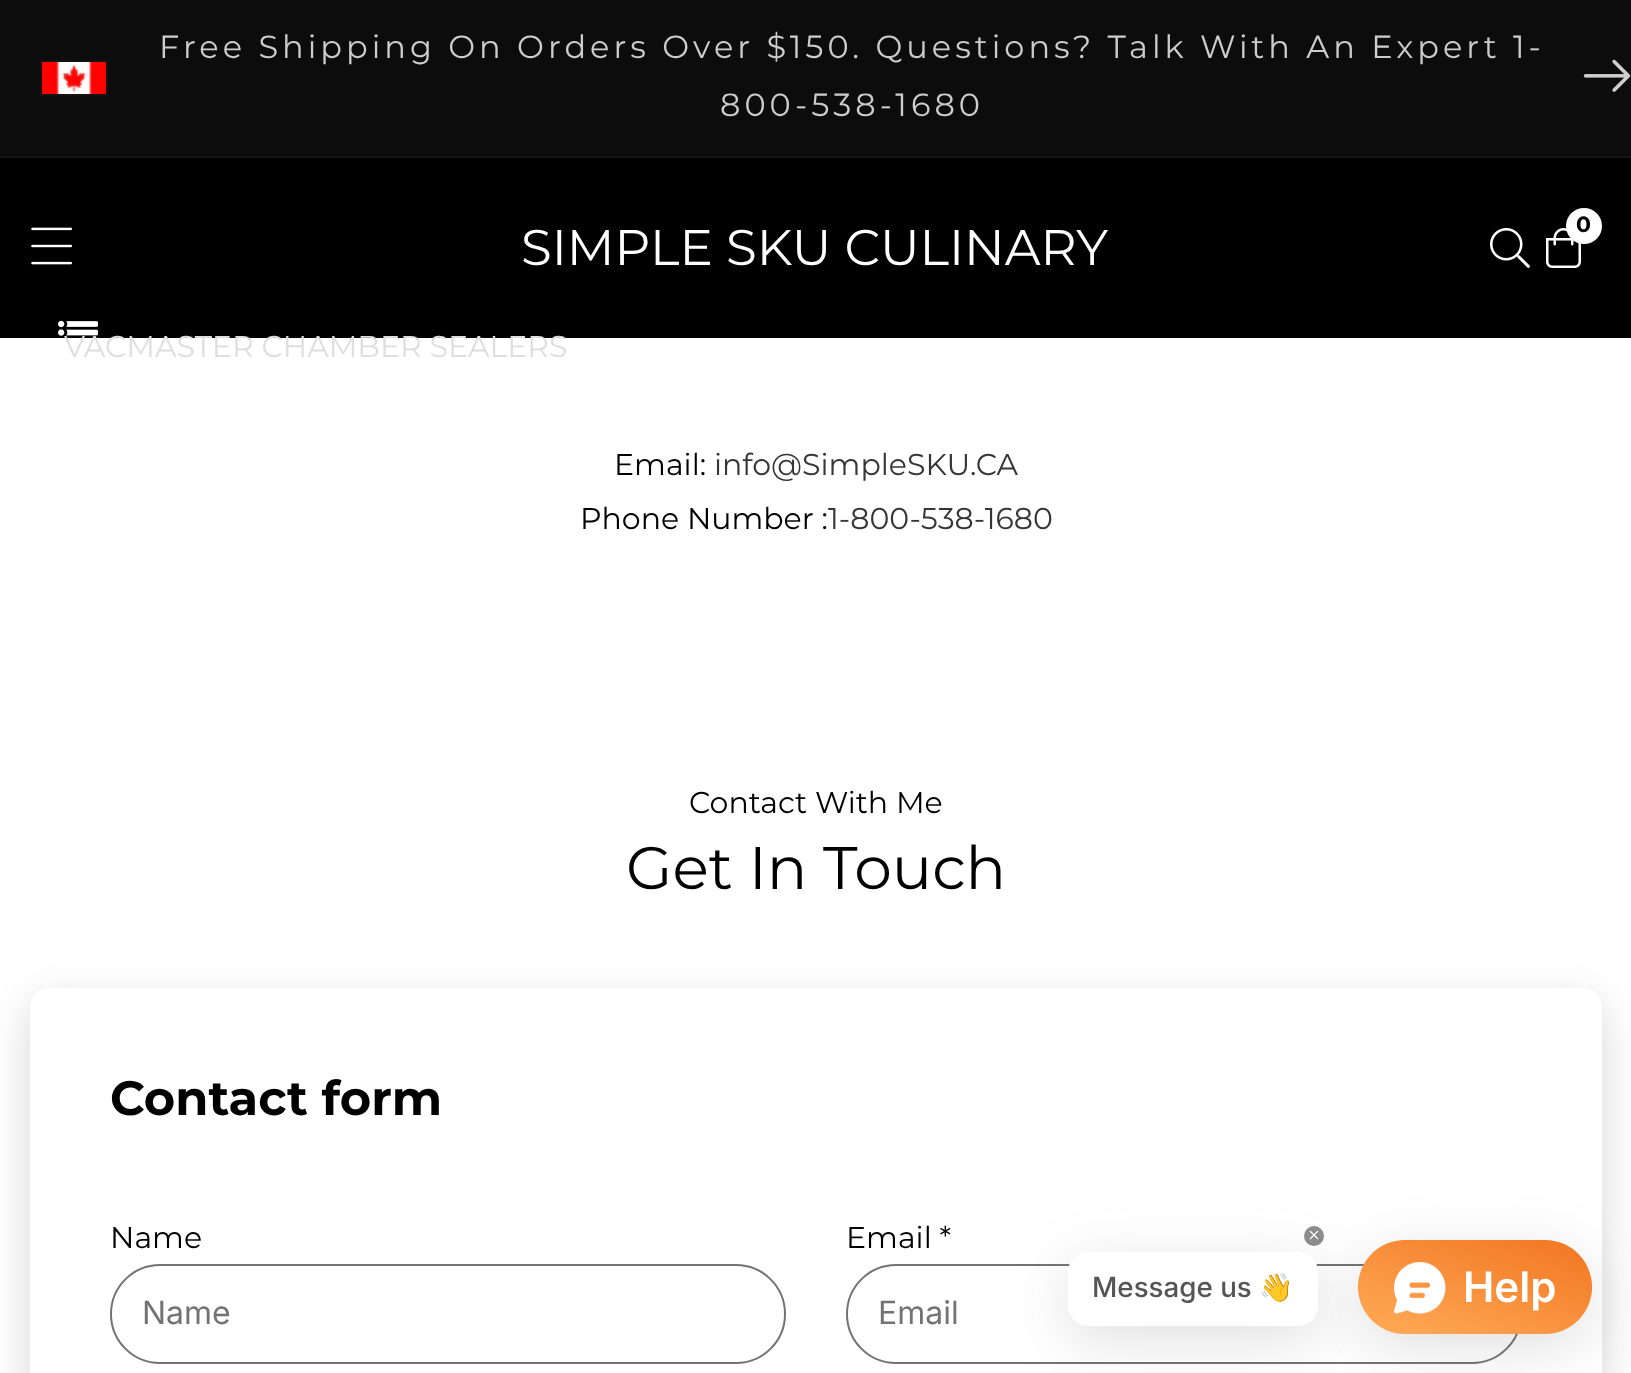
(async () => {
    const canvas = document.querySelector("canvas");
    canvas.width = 1631;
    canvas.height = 1373;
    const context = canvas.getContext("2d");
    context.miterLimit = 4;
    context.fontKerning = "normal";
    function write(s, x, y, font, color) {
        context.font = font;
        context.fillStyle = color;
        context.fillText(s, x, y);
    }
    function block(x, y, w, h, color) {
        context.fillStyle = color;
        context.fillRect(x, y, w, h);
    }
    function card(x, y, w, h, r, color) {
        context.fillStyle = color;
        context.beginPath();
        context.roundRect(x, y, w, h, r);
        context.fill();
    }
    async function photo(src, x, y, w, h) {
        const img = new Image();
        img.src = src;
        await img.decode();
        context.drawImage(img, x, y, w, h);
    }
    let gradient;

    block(0, 0, 1631, 1373, "rgb(255, 255, 255)");
    block(0, 156, 1631, 2, "rgb(20, 20, 20)");
    block(0, 0, 1631, 156, "rgb(12, 12, 12)");
    context.letterSpacing = "4px";
    write("Free Shipping On Orders Over $150. Questions? Talk With An Expert 1-", 159, 58, "32px Montserrat", "rgb(204, 204, 204)");
    context.strokeStyle = "rgb(18, 18, 18)";
    context.lineWidth = 2;
    context.strokeRect(41, 61, 66, 34);
    await photo("media/1.png", 42, 62, 64, 32);
    await photo("media/2.png", 1583, 59, 48, 33);
    write("800-538-1680", 720, 116, "32px Montserrat", "rgb(204, 204, 204)");
    block(0, 158, 1631, 180, "rgb(0, 0, 0)");
    await photo("media/3.png", 1546, 228, 35, 40);
    context.fillStyle = "rgb(255, 255, 255)";
    context.beginPath();
    context.arc(1584, 226, 18, 0, Math.PI * 2);
    context.fill();
    context.letterSpacing = "0px";
    write("0", 1576, 232, "bold 22px Montserrat", "rgb(0, 0, 0)");
    await photo("media/4.png", 1490, 228, 40, 40);
    await photo("media/5.png", 31, 227, 41, 38);
    write("SIMPLE SKU CULINARY", 521, 265, "50px Montserrat", "rgb(255, 255, 255)");
    await photo("media/6.png", 58, 320, 40, 16);
    write("VACMASTER CHAMBER SEALERS", 64, 357, "30px Montserrat", "rgb(222, 222, 222)");
    write("Email:", 614, 475, "30px Montserrat", "rgb(0, 0, 0)");
    write("info@SimpleSKU.CA", 714, 475, "30px Montserrat", "rgb(54, 54, 54)");
    write("Phone Number :", 580, 529, "30px Montserrat", "rgb(0, 0, 0)");
    write("1-800-538-1680", 828, 529, "30px Montserrat", "rgb(54, 54, 54)");
    write("Contact With Me", 689, 813, "30px Montserrat", "rgb(0, 0, 0)");
    write("Get In Touch", 626, 889, "60px Montserrat", "rgb(0, 0, 0)");
    context.fillStyle = "rgba(0, 0, 0, 0.16)";
    context.filter = "blur(20px)";
    context.beginPath();
    context.roundRect(30, 1002, 1572, 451, 20);
    context.fill();
    context.filter = "none";
    card(30, 988, 1572, 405, 20, "rgb(255, 255, 255)");
    write("Contact form", 110, 1115, "bold 48px Montserrat", "rgb(0, 0, 0)");
    write("Name", 110, 1248, "30px Montserrat", "rgb(0, 0, 0)");
    context.beginPath();
    context.roundRect(111, 1265, 674, 98, 49);
    context.strokeStyle = "rgb(115, 115, 115)";
    context.stroke();
    write("Name", 142, 1324, "32px Inter", "rgb(115, 115, 115)");
    write("Email *", 846, 1248, "30px Montserrat", "rgb(0, 0, 0)");
    context.beginPath();
    context.roundRect(847, 1265, 674, 98, 49);
    context.stroke();
    write("Email", 878, 1324, "32px Inter", "rgb(115, 115, 115)");
    context.fillStyle = "rgba(100, 100, 111, 0.2)";
    context.filter = "blur(29px)";
    context.beginPath();
    context.roundRect(1358, 1254, 234, 94, 47);
    context.fill();
    context.filter = "none";
    gradient = context.createLinearGradient(1502, 1209, 1448, 1365);
    gradient.addColorStop(0, "rgb(242, 117, 33)");
    gradient.addColorStop(1, "rgb(255, 172, 88)");
    context.fillStyle = gradient;
    context.beginPath();
    context.roundRect(1358, 1240, 234, 94, 47);
    context.fill();
    context.beginPath();
    context.ellipse(1475, 1287, 117, 47, 0, 0, Math.PI * 2);
    context.fill();
    await photo("media/8.png", 1394, 1261, 52, 53);
    context.fillStyle = "rgba(100, 100, 111, 0.2)";
    context.filter = "blur(29px)";
    context.beginPath();
    context.roundRect(1068, 1266, 250, 74, 20);
    context.fill();
    context.filter = "none";
    card(1068, 1252, 250, 74, 20, "rgb(255, 255, 255)");
    context.fillStyle = "rgba(48, 48, 48, 0.55)";
    context.beginPath();
    context.arc(1314, 1236, 10, 0, Math.PI * 2);
    context.fill();
    await photo("media/7.png", 1309, 1230, 10, 10);
    write("Message us", 1092, 1297, "500 27.75px Inter", "rgb(85, 85, 85)");
    write("👋", 1259, 1297, "27.75px Noto Color Emoji", "rgb(85, 85, 85)");
    write("Help", 1463, 1302, "600 42px Inter", "rgb(255, 255, 255)");
})();
